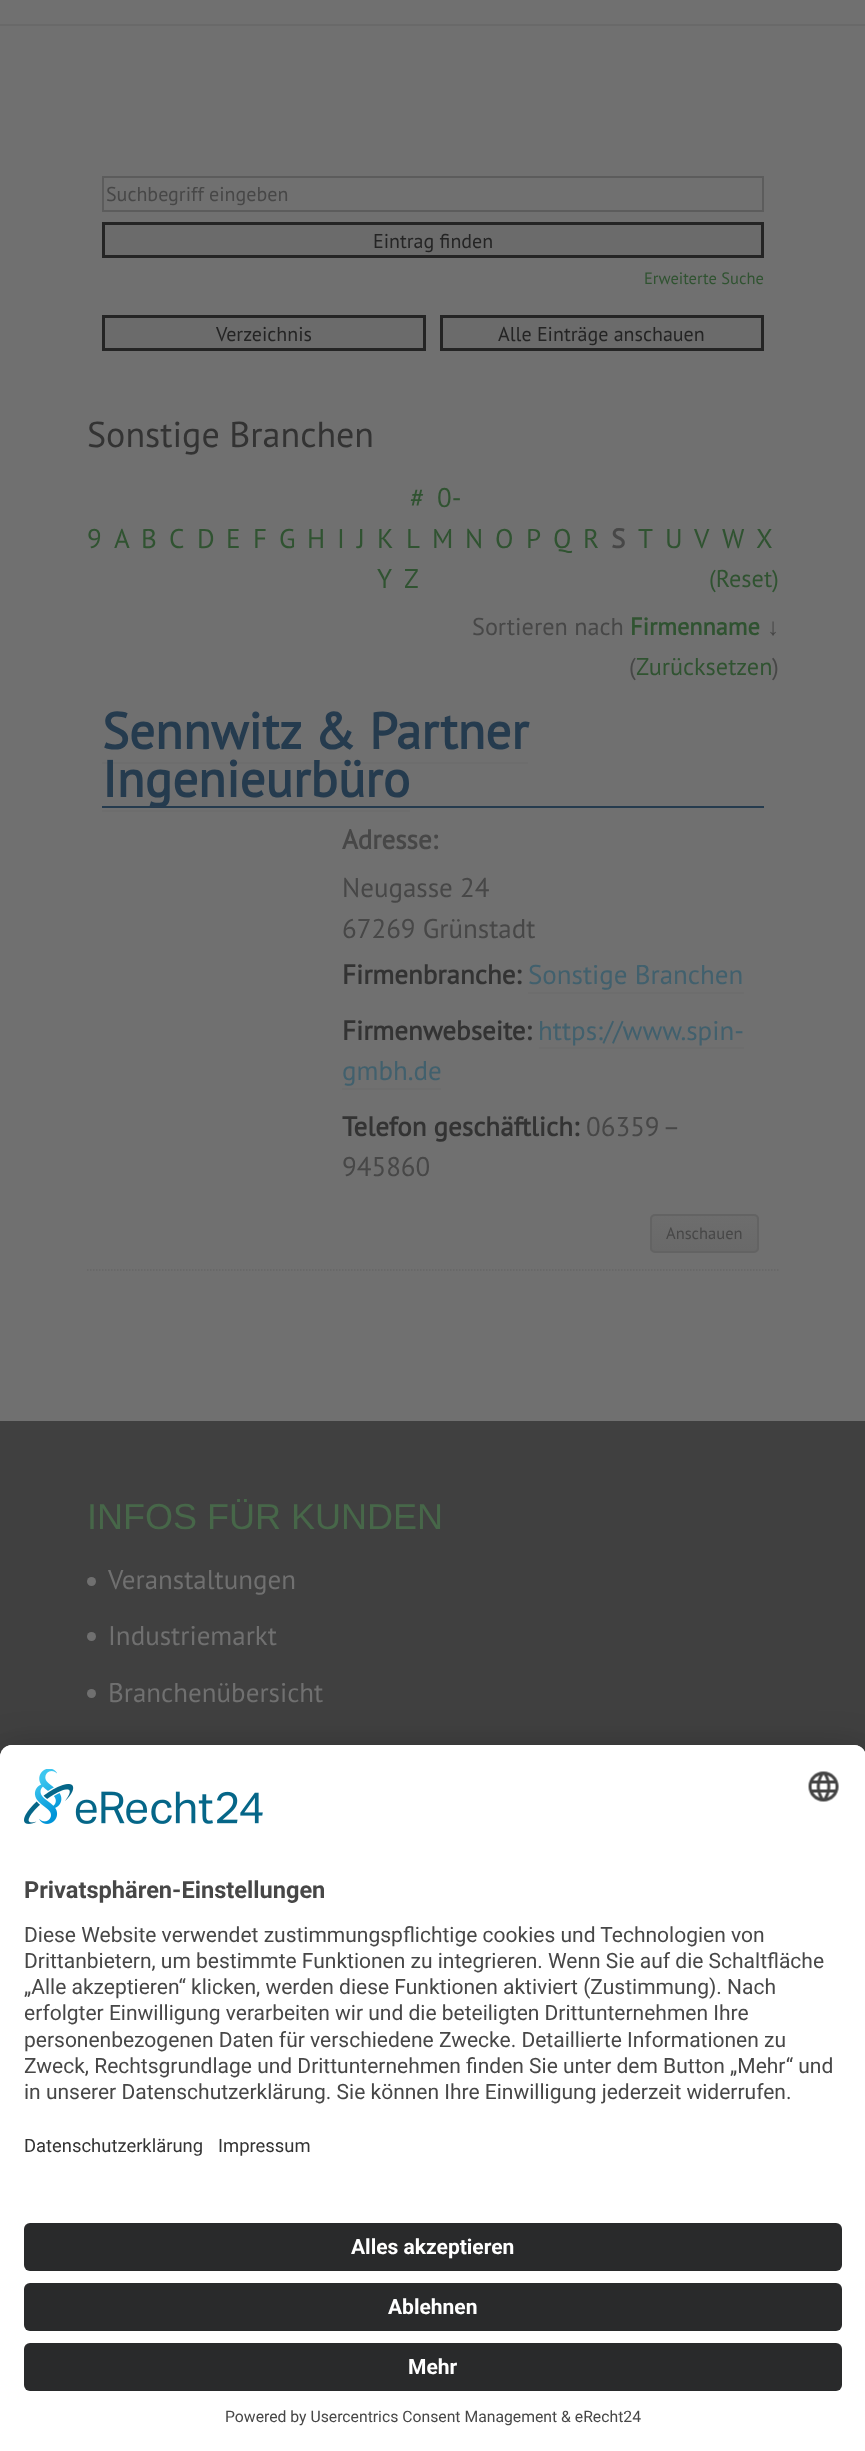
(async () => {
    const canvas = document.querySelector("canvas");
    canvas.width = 865;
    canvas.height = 2451;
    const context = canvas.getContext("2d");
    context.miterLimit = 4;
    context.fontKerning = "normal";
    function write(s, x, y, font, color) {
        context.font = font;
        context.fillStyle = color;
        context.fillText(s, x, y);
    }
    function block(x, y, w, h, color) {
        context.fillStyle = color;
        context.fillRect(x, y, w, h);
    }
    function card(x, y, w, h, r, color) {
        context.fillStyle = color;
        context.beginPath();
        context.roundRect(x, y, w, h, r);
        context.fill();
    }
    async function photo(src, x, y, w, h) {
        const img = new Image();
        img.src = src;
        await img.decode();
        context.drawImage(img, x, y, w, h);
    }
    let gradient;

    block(0, 0, 865, 2451, "rgb(112, 112, 112)");
    context.fillStyle = "rgb(105, 105, 105)";
    context.beginPath();
    context.moveTo(0, 24);
    context.lineTo(0, 26);
    context.lineTo(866, 26);
    context.lineTo(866, -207);
    context.lineTo(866, 24);
    context.closePath();
    context.fill();
    context.strokeStyle = "rgb(92, 92, 92)";
    context.lineWidth = 2;
    context.strokeRect(103, 177, 660, 34);
    write("Suchbegriff eingeben", 106, 201, "20px PT Sans", "rgb(71, 71, 71)");
    context.fillStyle = "rgb(107, 107, 107)";
    context.beginPath();
    context.rect(103.5, 223.5, 659, 33);
    context.fill();
    context.strokeStyle = "rgb(36, 36, 36)";
    context.lineWidth = 3;
    context.stroke();
    write("Eintrag finden", 373, 248, "20px PT Sans", "rgb(36, 36, 36)");
    write("Erweiterte Suche", 644, 284, "16.5px PT Sans", "rgb(48, 83, 49)");
    context.fillStyle = "rgb(107, 107, 107)";
    context.beginPath();
    context.rect(103.5, 316.5, 321, 33);
    context.fill();
    context.stroke();
    write("Verzeichnis", 216, 341, "20px PT Sans", "rgb(36, 36, 36)");
    context.fillStyle = "rgb(107, 107, 107)";
    context.beginPath();
    context.rect(441.5, 316.5, 321, 33);
    context.fill();
    context.stroke();
    write("Alle Einträge anschauen", 498, 341, "20px PT Sans", "rgb(36, 36, 36)");
    write("Sonstige Branchen", 87, 447, "36px PT Sans", "rgb(51, 51, 51)");
    write("#", 410, 507, "27px PT Sans", "rgb(48, 83, 49)");
    write("0-", 437, 507, "27px PT Sans", "rgb(48, 83, 49)");
    write("9", 87, 548, "27px PT Sans", "rgb(48, 83, 49)");
    write("A", 114, 548, "27px PT Sans", "rgb(48, 83, 49)");
    write("B", 141, 548, "27px PT Sans", "rgb(48, 83, 49)");
    write("C", 169, 548, "27px PT Sans", "rgb(48, 83, 49)");
    write("D", 197, 548, "27px PT Sans", "rgb(48, 83, 49)");
    write("E", 226, 548, "27px PT Sans", "rgb(48, 83, 49)");
    write("F", 253, 548, "27px PT Sans", "rgb(48, 83, 49)");
    write("G", 279, 548, "27px PT Sans", "rgb(48, 83, 49)");
    write("H", 307, 548, "27px PT Sans", "rgb(48, 83, 49)");
    write("I", 337, 548, "27px PT Sans", "rgb(48, 83, 49)");
    write("J", 357, 548, "27px PT Sans", "rgb(48, 83, 49)");
    write("K", 377, 548, "27px PT Sans", "rgb(48, 83, 49)");
    write("L", 406, 548, "27px PT Sans", "rgb(48, 83, 49)");
    write("M", 432, 548, "27px PT Sans", "rgb(48, 83, 49)");
    write("N", 465, 548, "27px PT Sans", "rgb(48, 83, 49)");
    write("O", 495, 548, "27px PT Sans", "rgb(48, 83, 49)");
    write("P", 526, 548, "27px PT Sans", "rgb(48, 83, 49)");
    write("Q", 553, 548, "27px PT Sans", "rgb(48, 83, 49)");
    write("R", 583, 548, "27px PT Sans", "rgb(48, 83, 49)");
    write("S", 611, 548, "bold 27px PT Sans", "rgb(71, 71, 71)");
    write("T", 638, 548, "27px PT Sans", "rgb(48, 83, 49)");
    write("U", 665, 548, "27px PT Sans", "rgb(48, 83, 49)");
    write("V", 694, 548, "27px PT Sans", "rgb(48, 83, 49)");
    write("W", 722, 548, "27px PT Sans", "rgb(48, 83, 49)");
    write("X", 756, 548, "27px PT Sans", "rgb(48, 83, 49)");
    write("Y", 377, 588, "27px PT Sans", "rgb(48, 83, 49)");
    write("Z", 404, 588, "27px PT Sans", "rgb(48, 83, 49)");
    write("(Reset)", 709, 587, "24.25px PT Sans", "rgb(48, 83, 49)");
    write("Sortieren nach", 472, 635, "24.25px PT Sans", "rgb(71, 71, 71)");
    write("Firmenname", 630, 635, "bold 24.25px PT Sans", "rgb(48, 83, 49)");
    write("↓", 767, 635, "bold 24.25px Liberation Sans", "rgb(71, 71, 71)");
    write("(", 629, 675, "24.25px PT Sans", "rgb(71, 71, 71)");
    write("Zurücksetzen", 636, 675, "24.25px PT Sans", "rgb(48, 83, 49)");
    write(")", 772, 675, "24.25px PT Sans", "rgb(71, 71, 71)");
    context.beginPath();
    context.moveTo(87, 1270);
    context.lineTo(778.5, 1270);
    context.strokeStyle = "rgb(102, 102, 102)";
    context.lineWidth = 1.5;
    context.setLineDash([1.5, 1.5]);
    context.stroke();
    block(102, 806, 662, 2, "rgb(37, 59, 78)");
    write("Sennwitz & Partner", 102, 749, "bold 51px PT Sans", "rgb(37, 59, 78)");
    block(102, 762, 426, 2, "rgb(109, 109, 109)");
    write("Ingenieurbüro", 102, 797, "bold 51px PT Sans", "rgb(37, 59, 78)");
    block(102, 810, 308, 2, "rgb(109, 109, 109)");
    write("Adresse:", 342, 849, "bold 27px PT Sans", "rgb(71, 71, 71)");
    write("Neugasse 24", 342, 897, "27px PT Sans", "rgb(71, 71, 71)");
    write("67269 Grünstadt", 342, 938, "27px PT Sans", "rgb(71, 71, 71)");
    write("Firmenbranche:", 342, 984, "bold 27px PT Sans", "rgb(51, 51, 51)");
    write("Sonstige Branchen", 528, 984, "27px PT Sans", "rgb(65, 96, 109)");
    block(528, 992, 216, 2, "rgb(109, 109, 109)");
    write("Firmenwebseite:", 342, 1040, "bold 27px PT Sans", "rgb(51, 51, 51)");
    write("https://www.spin-", 538, 1040, "27px PT Sans", "rgb(65, 96, 109)");
    block(539, 1047, 205, 2, "rgb(109, 109, 109)");
    write("gmbh.de", 342, 1080, "27px PT Sans", "rgb(65, 96, 109)");
    block(342, 1088, 99, 2, "rgb(109, 109, 109)");
    write("Telefon geschäftlich:", 342, 1136, "bold 27px PT Sans", "rgb(51, 51, 51)");
    context.wordSpacing = "-2px";
    write("06359 –", 586, 1136, "27px PT Sans", "rgb(71, 71, 71)");
    context.wordSpacing = "0px";
    write("945860", 342, 1176, "27px PT Sans", "rgb(71, 71, 71)");
    context.save();
    context.beginPath();
    context.roundRect(650, 1214, 109, 39, 5);
    context.clip();
    gradient = context.createLinearGradient(704, 1215, 704, 1251);
    gradient.addColorStop(0, "rgb(109, 109, 109)");
    gradient.addColorStop(1, "rgb(105, 105, 105)");
    context.fillStyle = gradient;
    context.fillRect(650, 1215, 109, 36);
    context.restore();
    context.beginPath();
    context.roundRect(651, 1215, 107, 37, 4);
    context.strokeStyle = "rgb(99, 99, 99)";
    context.lineWidth = 2;
    context.setLineDash([]);
    context.stroke();
    write("Anschauen", 666, 1239, "16.5px PT Sans", "rgb(71, 71, 71)");
    block(0, 1421, 865, 336, "rgb(64, 64, 64)");
    write("INFOS FÜR KUNDEN", 87, 1529, "36px Liberation Sans", "rgb(71, 103, 73)");
    context.fillStyle = "rgb(112, 112, 112)";
    context.beginPath();
    context.arc(91.5, 1581.5, 4.5, 0, Math.PI * 2);
    context.fill();
    write("Veranstaltungen", 108, 1589, "27px PT Sans", "rgb(112, 112, 112)");
    context.beginPath();
    context.arc(91.5, 1636.5, 4.5, 0, Math.PI * 2);
    context.fill();
    write("Industriemarkt", 108, 1645, "27px PT Sans", "rgb(112, 112, 112)");
    context.beginPath();
    context.arc(91.5, 1693.5, 4.5, 0, Math.PI * 2);
    context.fill();
    write("Branchenübersicht", 108, 1702, "27px PT Sans", "rgb(112, 112, 112)");
    context.fillStyle = "rgba(0, 0, 0, 0.3)";
    context.filter = "blur(21px)";
    context.beginPath();
    context.roundRect(0, 1775, 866, 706, 12);
    context.fill();
    context.filter = "none";
    context.fillStyle = "rgba(0, 0, 0, 0.22)";
    context.filter = "blur(19.5px)";
    context.beginPath();
    context.roundRect(0, 1752, 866, 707, 12);
    context.fill();
    context.filter = "none";
    context.fillStyle = "rgb(255, 255, 255)";
    context.beginPath();
    context.moveTo(12, 1745);
    context.lineTo(854, 1745);
    context.bezierCurveTo(860.5, 1745, 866, 1750.5, 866, 1757);
    context.lineTo(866, 2451);
    context.lineTo(0, 2451);
    context.lineTo(0, 1757);
    context.bezierCurveTo(0, 1750.5, 5.5, 1745, 12, 1745);
    context.closePath();
    context.fill();
    context.beginPath();
    context.moveTo(12, 1745);
    context.lineTo(854, 1745);
    context.bezierCurveTo(860.5, 1745, 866, 1750.5, 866, 1757);
    context.lineTo(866, 2205);
    context.lineTo(0, 2205);
    context.lineTo(0, 1757);
    context.bezierCurveTo(0, 1750.5, 5.5, 1745, 12, 1745);
    context.closePath();
    context.fill();
    await photo("media/1.png", 24, 1769, 239, 55);
    await photo("media/2.png", 808, 1771, 31, 31);
    write("Privatsphären-Einstellungen", 24, 1898, "bold 23.6px Roboto", "rgb(71, 71, 71)");
    write("Diese Website verwendet zustimmungspflichtige cookies und Technologien von", 24, 1942, "21px Roboto", "rgb(71, 71, 71)");
    write("Drittanbietern, um bestimmte Funktionen zu integrieren. Wenn Sie auf die Schaltfläche", 24, 1968, "21px Roboto", "rgb(71, 71, 71)");
    write("„Alle akzeptieren“ klicken, werden diese Funktionen aktiviert (Zustimmung). Nach", 24, 1994, "21px Roboto", "rgb(71, 71, 71)");
    write("erfolgter Einwilligung verarbeiten wir und die beteiligten Drittunternehmen Ihre", 24, 2020, "21px Roboto", "rgb(71, 71, 71)");
    write("personenbezogenen Daten für verschiedene Zwecke. Detaillierte Informationen zu", 24, 2047, "21px Roboto", "rgb(71, 71, 71)");
    write("Zweck, Rechtsgrundlage und Drittunternehmen finden Sie unter dem Button „Mehr“ und", 24, 2073, "21px Roboto", "rgb(71, 71, 71)");
    write("in unserer Datenschutzerklärung. Sie können Ihre Einwilligung jederzeit widerrufen.", 24, 2099, "21px Roboto", "rgb(71, 71, 71)");
    write("Datenschutzerklärung", 24, 2152, "18.4px Roboto", "rgb(51, 51, 51)");
    write("Impressum", 218, 2152, "18.4px Roboto", "rgb(51, 51, 51)");
    card(24, 2223, 818, 48, 6, "rgb(41, 42, 43)");
    write("Alles akzeptieren", 351, 2254, "bold 21px Roboto", "rgb(255, 255, 255)");
    card(24, 2283, 818, 48, 6, "rgb(41, 42, 43)");
    write("Ablehnen", 388, 2314, "bold 21px Roboto", "rgb(255, 255, 255)");
    card(24, 2343, 818, 48, 6, "rgb(41, 42, 43)");
    write("Mehr", 408, 2374, "bold 21px Roboto", "rgb(255, 255, 255)");
    write("Powered by Usercentrics Consent Management & eRecht24", 225, 2422, "15.75px Roboto", "rgb(71, 71, 71)");
})();
